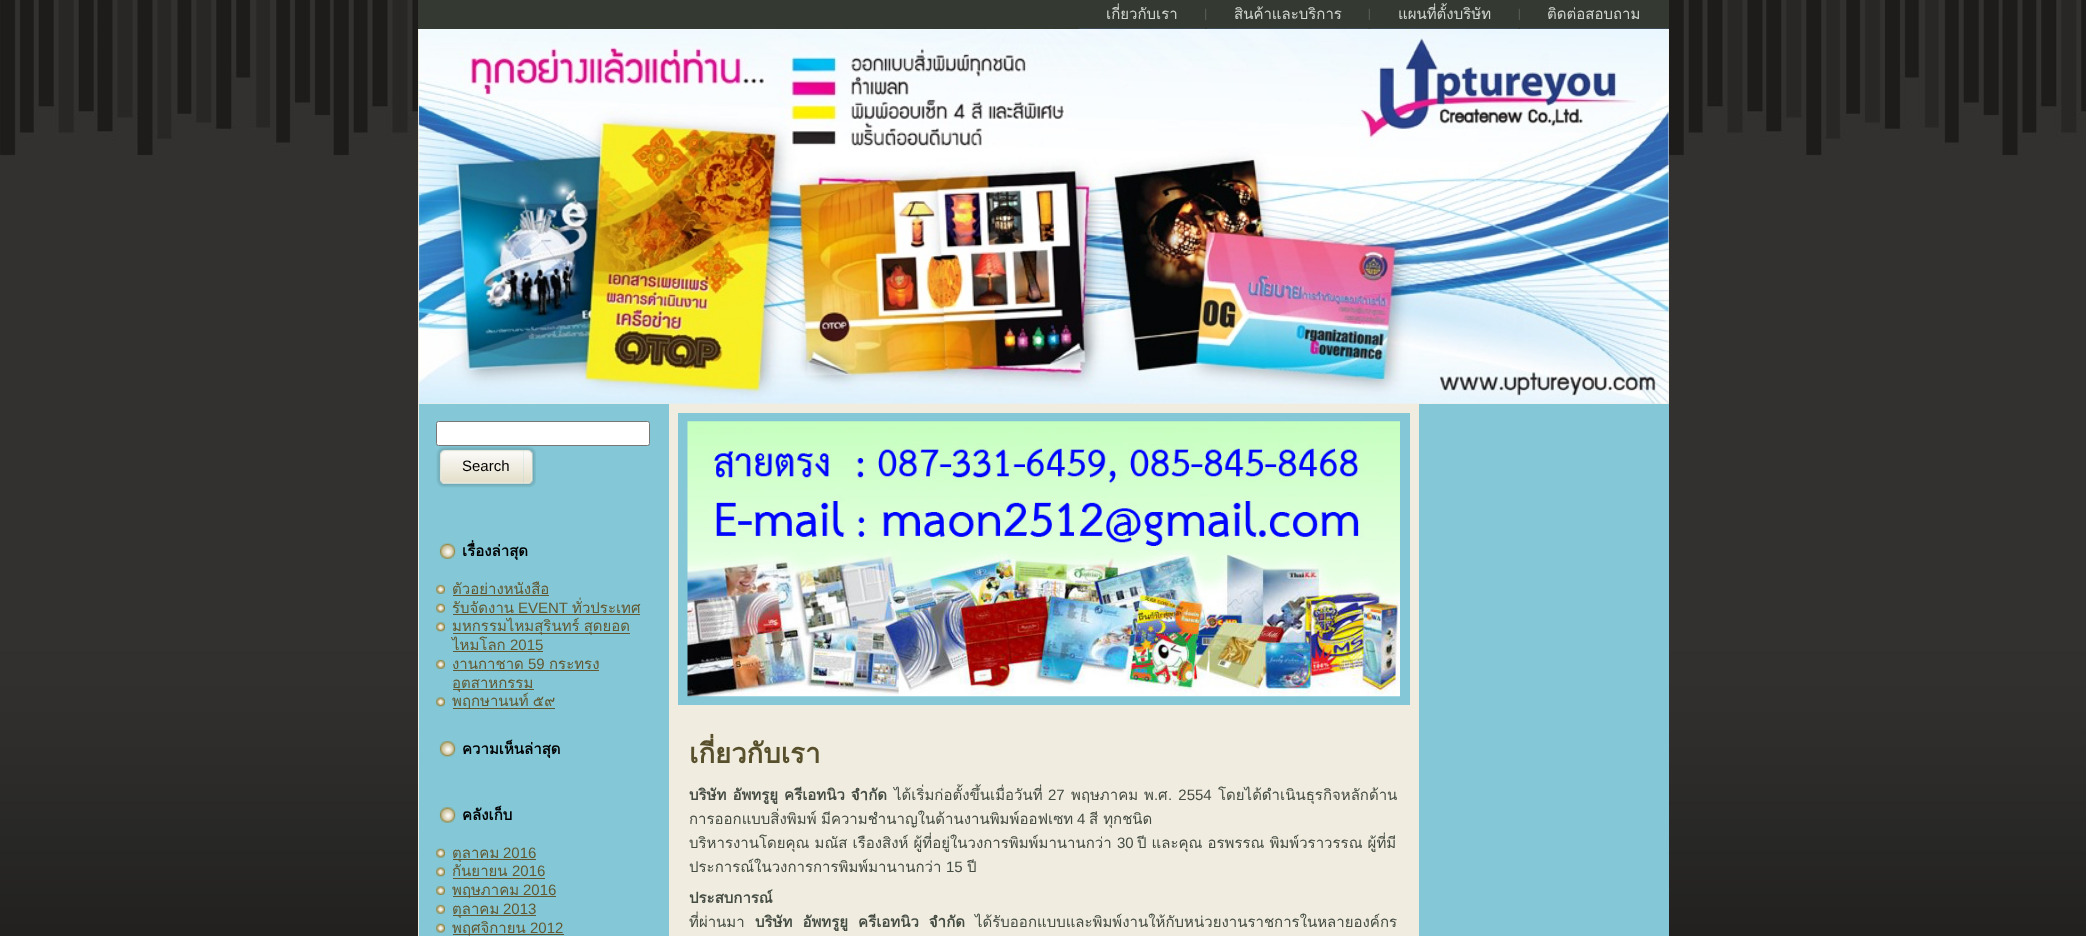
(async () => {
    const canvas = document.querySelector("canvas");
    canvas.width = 2086;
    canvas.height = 936;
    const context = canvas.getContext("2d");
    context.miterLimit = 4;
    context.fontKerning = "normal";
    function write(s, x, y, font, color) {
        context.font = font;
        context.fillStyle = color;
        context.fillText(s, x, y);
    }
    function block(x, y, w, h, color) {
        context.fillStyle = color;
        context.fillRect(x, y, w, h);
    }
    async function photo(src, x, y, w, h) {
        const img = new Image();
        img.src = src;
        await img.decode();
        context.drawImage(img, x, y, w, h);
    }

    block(0, 0, 2086, 936, "rgb(255, 255, 255)");
    await photo("media/1.png", 0, 0, 2086, 936);
    block(418, 29, 20, 907, "rgb(240, 237, 224)");
    block(418, 0, 1251, 29, "rgb(52, 57, 50)");
    write("เกี่ยวกับเรา", 1106, 19, "15px Loma", "rgb(210, 214, 209)");
    block(1079, 28, 126, 1, "rgb(60, 73, 86)");
    await photo("media/2.png", 1205, 8, 2, 13);
    write("สินค้าและบริการ", 1234, 19, "15px Loma", "rgb(210, 214, 209)");
    await photo("media/3.png", 1206, 28, 163, 1);
    await photo("media/4.png", 1368, 8, 2, 13);
    write("แผนที่ตั้งบริษัท", 1398, 19, "15px Loma", "rgb(210, 214, 209)");
    await photo("media/5.png", 1370, 28, 149, 1);
    await photo("media/4.png", 1518, 8, 2, 13);
    write("ติดต่อสอบถาม", 1547, 19, "15px Loma", "rgb(210, 214, 209)");
    await photo("media/5.png", 1520, 28, 149, 1);
    block(1650, 29, 19, 375, "rgb(240, 237, 224)");
    block(438, 403, 1212, 533, "rgb(240, 237, 224)");
    await photo("media/6.png", 418, 29, 1251, 375);
    block(419, 404, 250, 532, "rgb(132, 200, 215)");
    context.fillStyle = "rgb(255, 255, 255)";
    context.beginPath();
    context.roundRect(436.5, 421.5, 213, 24, 2);
    context.fill();
    context.strokeStyle = "rgb(118, 118, 118)";
    context.stroke();
    await photo("media/7.png", 436, 446, 88, 42);
    await photo("media/8.png", 523, 446, 13, 42);
    write("Search", 462, 471, "15px Liberation Sans", "rgb(0, 0, 0)");
    await photo("media/9.png", 439, 543, 17, 16);
    write("เรื่องล่าสุด", 462, 556, "bold 15px Loma", "rgb(0, 0, 0)");
    await photo("media/10.png", 436, 584, 9, 10);
    write("ตัวอย่างหนังสือ", 452, 594, "15px Loma", "rgb(98, 89, 50)");
    block(453, 595, 96, 1, "rgb(98, 89, 50)");
    await photo("media/11.png", 436, 603, 9, 10);
    write("รับจัดงาน", 452, 613, "15px Loma", "rgb(98, 89, 50)");
    block(453, 614, 187, 1, "rgb(98, 89, 50)");
    write("EVENT", 518, 613, "15px Liberation Sans", "rgb(98, 89, 50)");
    write("ทั่วประเทศ", 572, 613, "15px Loma", "rgb(98, 89, 50)");
    await photo("media/12.png", 436, 622, 9, 10);
    block(453, 633, 177, 1, "rgb(98, 89, 50)");
    context.wordSpacing = "-1px";
    write("มหกรรมไหมสุรินทร์ สุดยอด", 452, 631, "15px Loma", "rgb(98, 89, 50)");
    context.wordSpacing = "0px";
    write("ไหมโลก", 452, 650, "15px Loma", "rgb(98, 89, 50)");
    write("2015", 510, 650, "15px Liberation Sans", "rgb(98, 89, 50)");
    block(453, 651, 90, 1, "rgb(98, 89, 50)");
    await photo("media/13.png", 436, 659, 9, 10);
    write("งานกาชาด", 452, 669, "15px Loma", "rgb(98, 89, 50)");
    block(453, 670, 146, 1, "rgb(98, 89, 50)");
    write("59", 528, 669, "15px Liberation Sans", "rgb(98, 89, 50)");
    write("กระทรง", 549, 669, "15px Loma", "rgb(98, 89, 50)");
    block(453, 689, 81, 1, "rgb(98, 89, 50)");
    write("อุตสาหกรรม", 452, 688, "15px Loma", "rgb(98, 89, 50)");
    await photo("media/12.png", 436, 697, 9, 10);
    block(453, 708, 102, 1, "rgb(98, 89, 50)");
    context.wordSpacing = "-1px";
    write("พฤกษานนท์ ๕๙", 452, 706, "15px Loma", "rgb(98, 89, 50)");
    await photo("media/14.png", 439, 741, 17, 16);
    context.wordSpacing = "0px";
    write("ความเห็นล่าสุด", 462, 754, "bold 15px Loma", "rgb(0, 0, 0)");
    await photo("media/15.png", 439, 807, 17, 16);
    write("คลังเก็บ", 462, 820, "bold 15px Loma", "rgb(0, 0, 0)");
    await photo("media/11.png", 436, 848, 9, 10);
    block(453, 859, 83, 1, "rgb(98, 89, 50)");
    write("ตุลาคม", 452, 858, "15px Loma", "rgb(98, 89, 50)");
    write("2016", 503, 858, "15px Liberation Sans", "rgb(98, 89, 50)");
    await photo("media/12.png", 436, 867, 9, 10);
    write("กันยายน", 452, 876, "15px Loma", "rgb(98, 89, 50)");
    write("2016", 512, 876, "15px Liberation Sans", "rgb(98, 89, 50)");
    block(453, 878, 92, 1, "rgb(98, 89, 50)");
    await photo("media/16.png", 436, 886, 9, 9);
    block(453, 896, 103, 1, "rgb(98, 89, 50)");
    write("พฤษภาคม", 452, 895, "15px Loma", "rgb(98, 89, 50)");
    write("2016", 523, 895, "15px Liberation Sans", "rgb(98, 89, 50)");
    await photo("media/13.png", 436, 904, 9, 10);
    block(453, 915, 83, 1, "rgb(98, 89, 50)");
    write("ตุลาคม", 452, 914, "15px Loma", "rgb(98, 89, 50)");
    write("2013", 503, 914, "15px Liberation Sans", "rgb(98, 89, 50)");
    await photo("media/11.png", 436, 923, 9, 10);
    block(453, 934, 111, 1, "rgb(98, 89, 50)");
    write("พฤศจิกายน", 452, 933, "15px Loma", "rgb(98, 89, 50)");
    write("2012", 530, 933, "15px Liberation Sans", "rgb(98, 89, 50)");
    block(678, 413, 732, 292, "rgb(132, 200, 215)");
    await photo("media/17.png", 687, 421, 713, 276);
    write("เกี่ยวกับเรา", 689, 763, "bold 27.5px Loma", "rgb(88, 79, 44)");
    context.wordSpacing = "1px";
    write("บริษัท อัพทรูยู ครีเอทนิว จำกัด", 689, 800, "bold 15px Loma", "rgb(69, 76, 67)");
    context.wordSpacing = "0px";
    write("ได้เริ่มก่อตั้งขึ้นเมื่อวันที่", 894, 800, "15px Loma", "rgb(69, 76, 67)");
    write("27", 1048, 800, "15px Liberation Sans", "rgb(69, 76, 67)");
    write("พฤษภาคม", 1071, 800, "15px Loma", "rgb(69, 76, 67)");
    write("พ", 1144, 800, "15px Loma", "rgb(69, 76, 67)");
    write(".", 1154, 800, "15px Liberation Sans", "rgb(69, 76, 67)");
    write("ศ", 1158, 800, "15px Loma", "rgb(69, 76, 67)");
    context.wordSpacing = "2px";
    write(". 2554", 1168, 800, "15px Liberation Sans", "rgb(69, 76, 67)");
    context.wordSpacing = "0px";
    write("โดยได้ดำเนินธุรกิจหลักด้าน", 1218, 800, "15px Loma", "rgb(69, 76, 67)");
    write("การออกแบบสิ่งพิมพ์", 689, 824, "15px Loma", "rgb(69, 76, 67)");
    write("มีความชำนาญในด้านงานพิมพ์ออฟเซท", 821, 824, "15px Loma", "rgb(69, 76, 67)");
    write("4", 1077, 824, "15px Liberation Sans", "rgb(69, 76, 67)");
    write("สี ทุกชนิด", 1089, 824, "15px Loma", "rgb(69, 76, 67)");
    write("บริหารงานโดยคุณ มณัส เรืองสิงห์ ผู้ที่อยู่ในวงการพิมพ์มานานกว่า", 689, 848, "15px Loma", "rgb(69, 76, 67)");
    write("30", 1117, 848, "15px Liberation Sans", "rgb(69, 76, 67)");
    write("ปี และคุณ อรพรรณ พิมพ์วราวรรณ ผู้ที่มี", 1137, 848, "15px Loma", "rgb(69, 76, 67)");
    write("ประการณ์ในวงการการพิมพ์มานานกว่า", 689, 872, "15px Loma", "rgb(69, 76, 67)");
    write("15", 946, 872, "15px Liberation Sans", "rgb(69, 76, 67)");
    write("ปี", 967, 872, "15px Loma", "rgb(69, 76, 67)");
    write("ประสบการณ์", 689, 903, "bold 15px Loma", "rgb(69, 76, 67)");
    write("ที่ผ่านมา", 689, 927, "15px Loma", "rgb(69, 76, 67)");
    context.wordSpacing = "5px";
    write("บริษัท อัพทรูยู ครีเอทนิว จำกัด", 755, 927, "bold 15px Loma", "rgb(69, 76, 67)");
    context.wordSpacing = "0px";
    write("ได้รับออกแบบและพิมพ์งานให้กับหน่วยงานราชการในหลายองค์กร", 975, 927, "15px Loma", "rgb(69, 76, 67)");
    block(1419, 404, 250, 532, "rgb(132, 200, 215)");
})();
